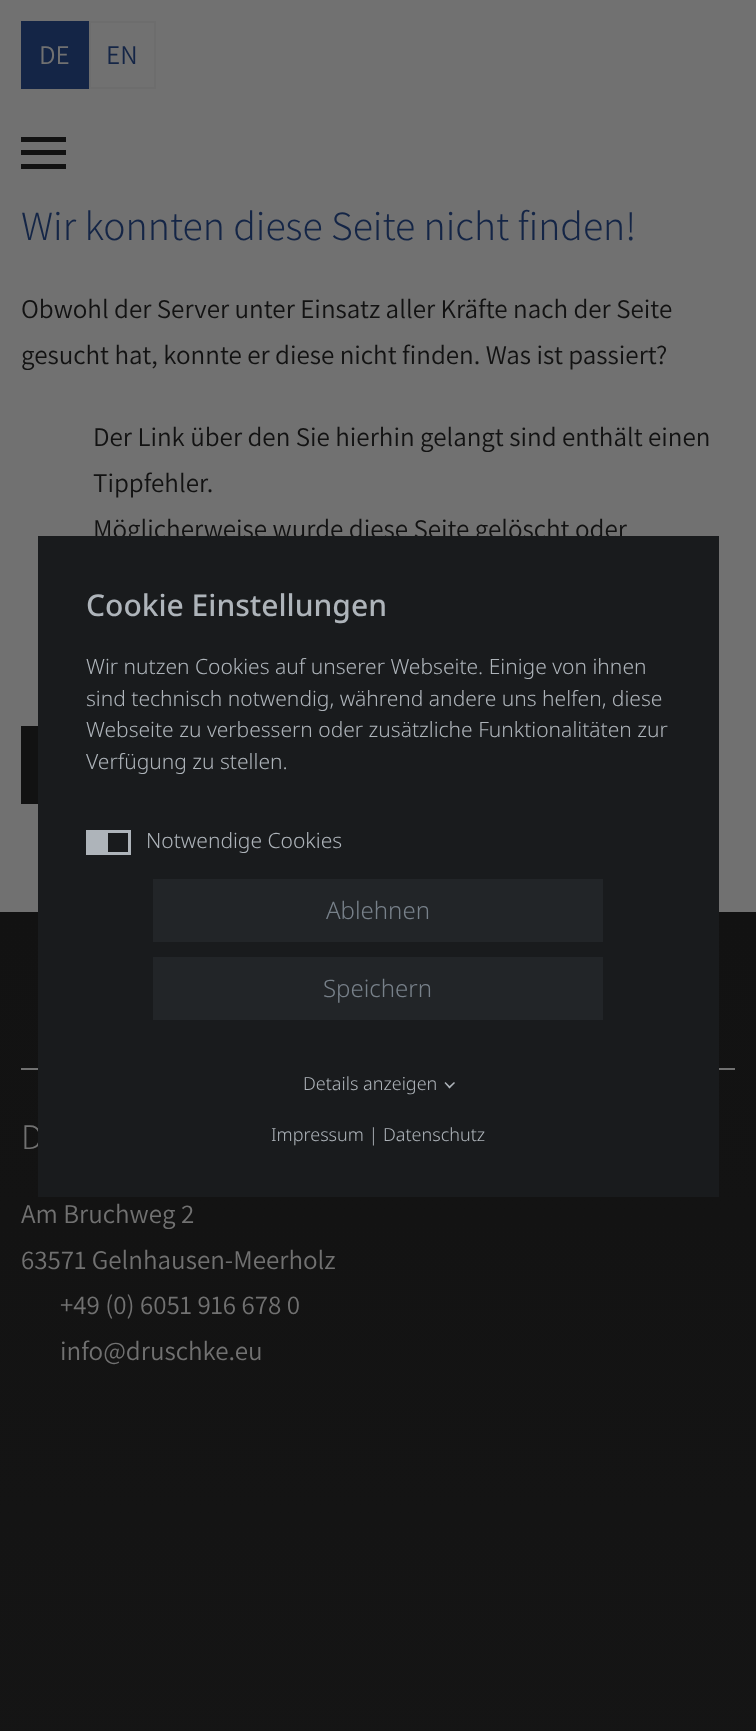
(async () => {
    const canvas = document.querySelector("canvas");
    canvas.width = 756;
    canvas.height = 1731;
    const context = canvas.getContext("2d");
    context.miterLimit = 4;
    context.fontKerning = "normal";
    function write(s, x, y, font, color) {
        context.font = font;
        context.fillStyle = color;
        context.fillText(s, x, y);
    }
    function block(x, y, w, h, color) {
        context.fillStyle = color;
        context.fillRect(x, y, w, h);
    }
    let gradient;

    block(0, 0, 756, 1731, "rgb(113, 113, 113)");
    block(21, 21, 68, 68, "rgb(20, 37, 70)");
    write("DE", 39, 64, "27px Assistant", "rgb(113, 113, 113)");
    context.strokeStyle = "rgb(109, 109, 109)";
    context.lineWidth = 2;
    context.strokeRect(90, 22, 65, 66);
    write("EN", 106, 64, "27px Assistant", "rgb(20, 37, 70)");
    block(21, 150, 45, 5, "rgb(18, 18, 18)");
    block(21, 137, 45, 5, "rgb(18, 18, 18)");
    block(21, 164, 45, 5, "rgb(18, 18, 18)");
    write("Wir konnten diese Seite nicht finden!", 21, 240, "300 41.5px Assistant", "rgb(20, 37, 70)");
    write("Obwohl der Server unter Einsatz aller Kräfte nach der Seite", 21, 318, "27px Assistant", "rgb(18, 18, 18)");
    write("gesucht hat, konnte er diese nicht finden. Was ist passiert?", 21, 364, "27px Assistant", "rgb(18, 18, 18)");
    write("Der Link über den Sie hierhin gelangt sind enthält einen", 93, 446, "27px Assistant", "rgb(18, 18, 18)");
    write("Tippfehler.", 93, 492, "27px Assistant", "rgb(18, 18, 18)");
    write("Möglicherweise wurde diese Seite gelöscht oder", 93, 538, "27px Assistant", "rgb(18, 18, 18)");
    block(21, 726, 17, 78, "rgb(18, 18, 18)");
    gradient = context.createLinearGradient(378, 912, 378, 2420);
    gradient.addColorStop(0, "rgb(18, 18, 18)");
    gradient.addColorStop(1, "rgb(23, 23, 23)");
    context.fillStyle = gradient;
    context.fillRect(0, 912, 756, 819);
    block(21, 1068, 714, 2, "rgb(113, 113, 113)");
    write("D", 21, 1149, "300 36px Assistant", "rgb(113, 113, 113)");
    block(38, 536, 681, 661, "rgb(25, 27, 29)");
    write("Cookie Einstellungen", 86, 616, "500 30px Noto Sans", "rgb(174, 180, 186)");
    write("Wir nutzen Cookies auf unserer Webseite. Einige von ihnen", 86, 674, "300 21px Noto Sans", "rgb(174, 180, 186)");
    write("sind technisch notwendig, während andere uns helfen, diese", 86, 706, "300 21px Noto Sans", "rgb(174, 180, 186)");
    write("Webseite zu verbessern oder zusätzliche Funktionalitäten zur", 86, 737, "300 21px Noto Sans", "rgb(174, 180, 186)");
    write("Verfügung zu stellen.", 86, 769, "300 21px Noto Sans", "rgb(174, 180, 186)");
    block(86, 830, 45, 25, "rgb(174, 180, 186)");
    block(108, 833, 20, 19, "rgb(25, 27, 29)");
    write("Notwendige Cookies", 146, 848, "300 21px Noto Sans", "rgb(174, 180, 186)");
    block(153, 879, 450, 63, "rgb(34, 37, 40)");
    write("Ablehnen", 326, 919, "300 24px Noto Sans", "rgb(120, 129, 138)");
    block(153, 957, 450, 63, "rgb(34, 37, 40)");
    write("Speichern", 323, 997, "300 24px Noto Sans", "rgb(120, 129, 138)");
    write("Details anzeigen", 303, 1090, "300 18px Noto Sans", "rgb(174, 180, 186)");
    context.beginPath();
    context.moveTo(454, 1082);
    context.lineTo(455, 1083);
    context.lineTo(449.5, 1088.5);
    context.lineTo(448.5, 1087);
    context.closePath();
    context.fill();
    context.beginPath();
    context.moveTo(445.5, 1082);
    context.lineTo(450.5, 1087);
    context.lineTo(449.5, 1088.5);
    context.lineTo(444.5, 1083);
    context.closePath();
    context.fill();
    write("Impressum | Datenschutz", 271, 1141, "300 18px Noto Sans", "rgb(174, 180, 186)");
    write("Am Bruchweg 2", 21, 1223, "27px Assistant", "rgb(113, 113, 113)");
    write("63571 Gelnhausen-Meerholz", 21, 1269, "27px Assistant", "rgb(113, 113, 113)");
    write("+49 (0) 6051 916 678 0", 60, 1314, "27px Assistant", "rgb(113, 113, 113)");
    write("info@druschke.eu", 60, 1360, "27px Assistant", "rgb(113, 113, 113)");
})();
